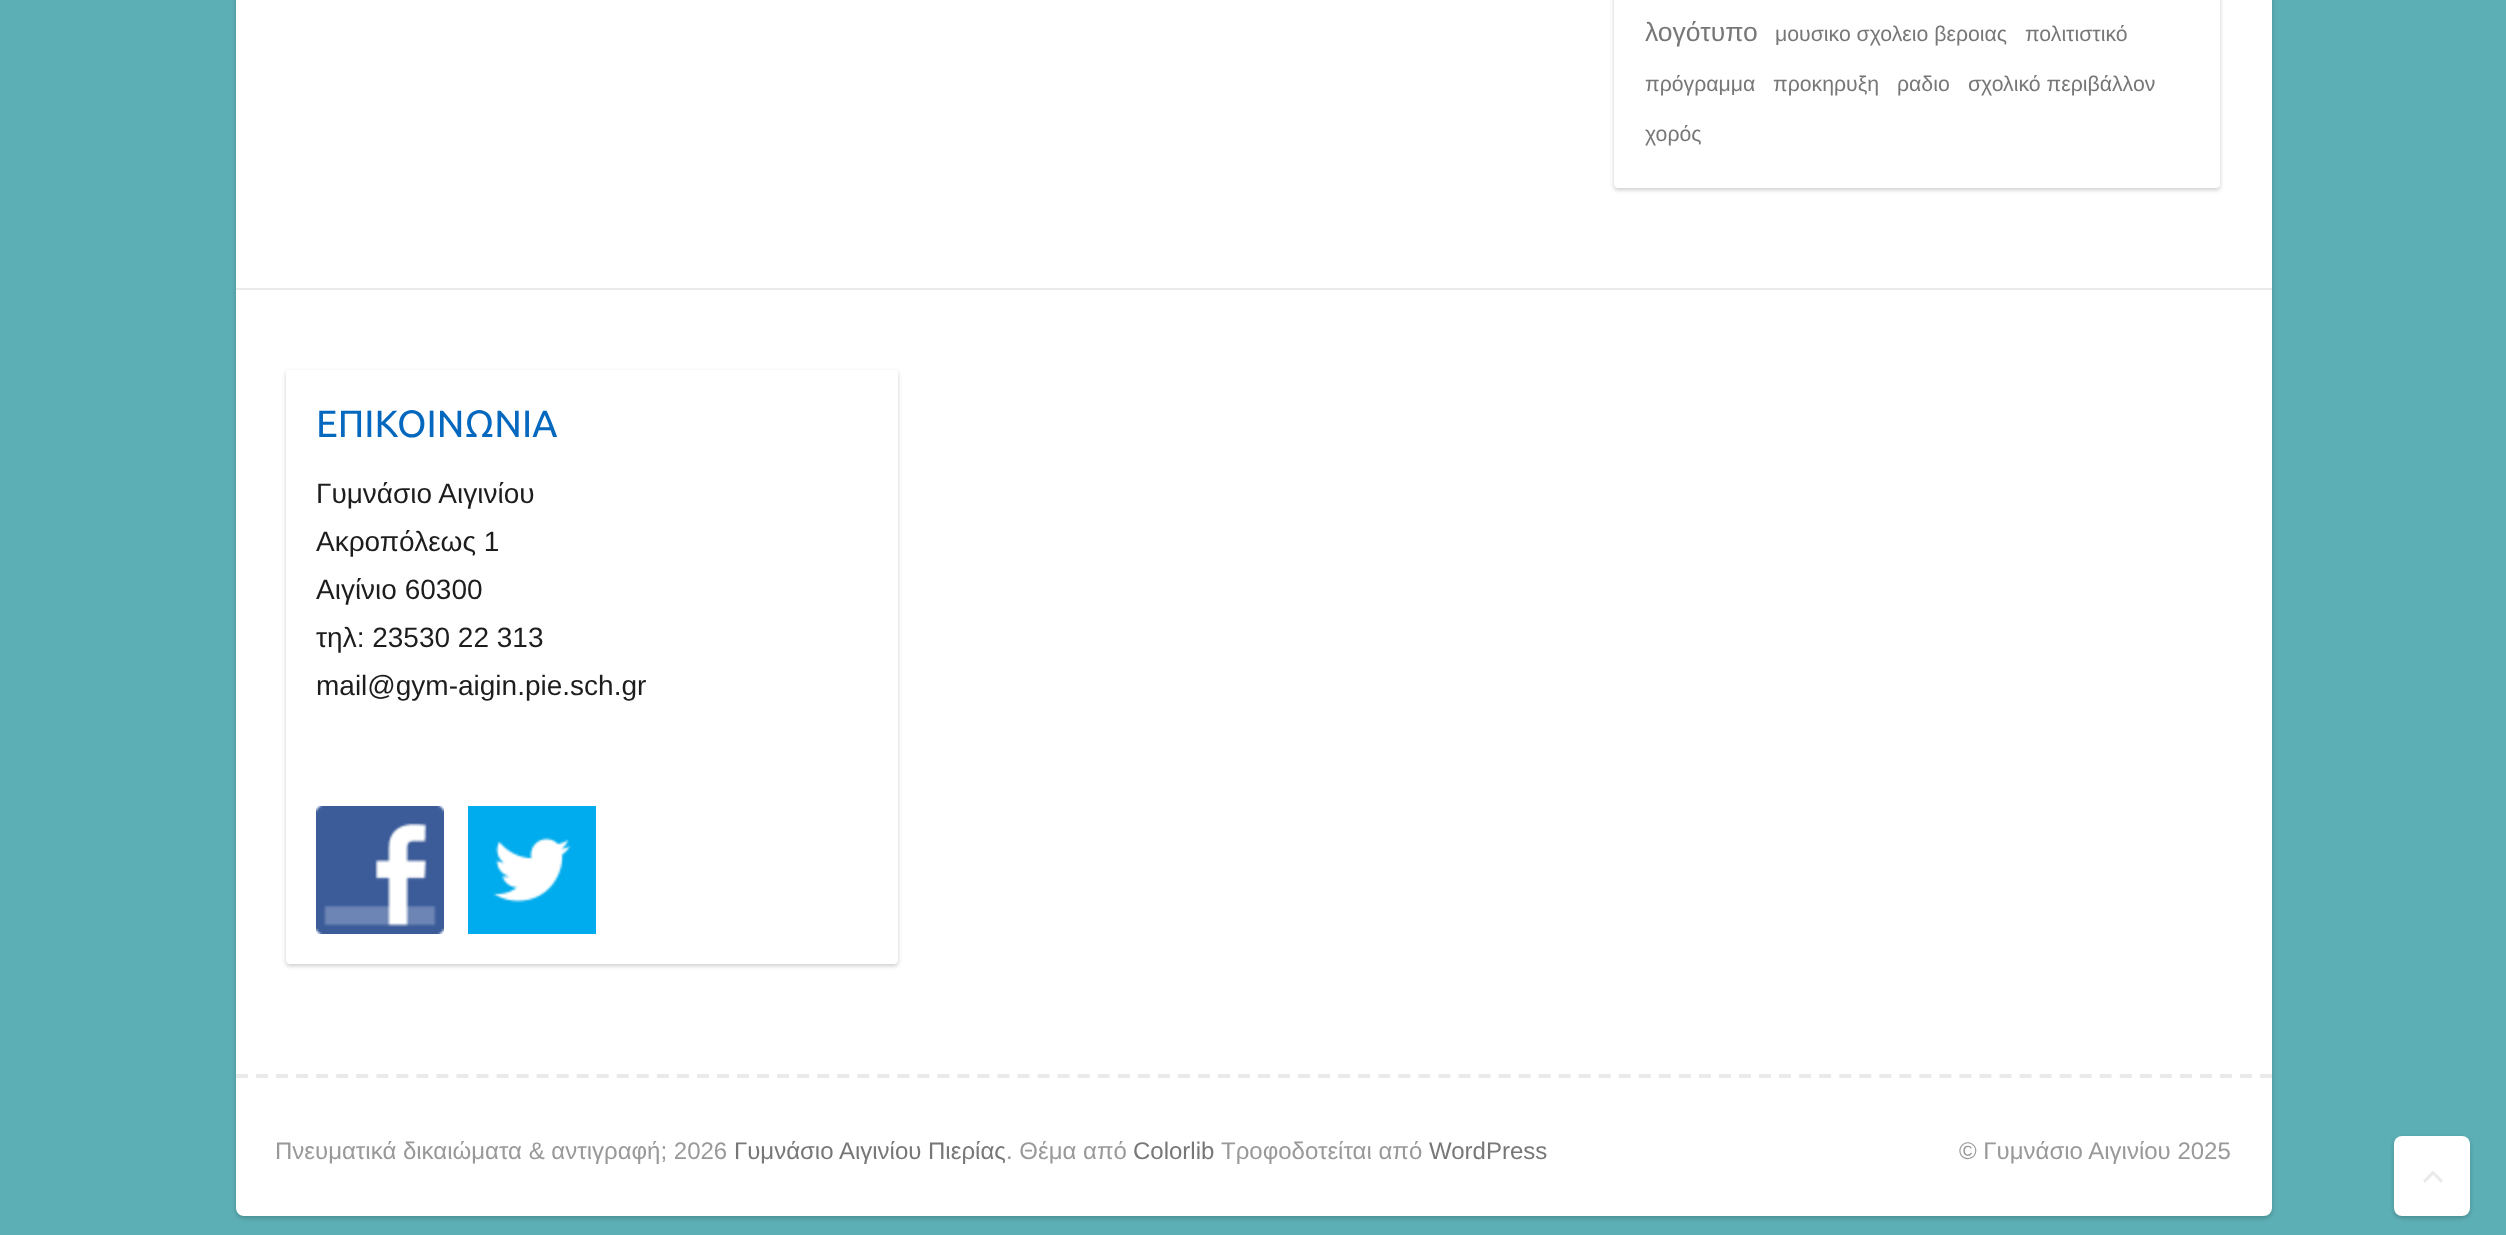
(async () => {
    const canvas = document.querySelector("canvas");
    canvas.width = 2506;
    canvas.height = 1235;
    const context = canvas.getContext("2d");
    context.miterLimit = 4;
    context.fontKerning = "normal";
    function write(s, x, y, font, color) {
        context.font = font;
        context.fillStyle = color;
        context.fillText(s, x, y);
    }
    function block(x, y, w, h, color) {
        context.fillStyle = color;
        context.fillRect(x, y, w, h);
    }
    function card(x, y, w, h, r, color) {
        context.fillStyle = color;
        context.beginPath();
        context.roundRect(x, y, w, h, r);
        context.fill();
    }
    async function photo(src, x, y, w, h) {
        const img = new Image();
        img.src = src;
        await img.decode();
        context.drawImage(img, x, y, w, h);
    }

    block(0, 0, 2506, 1235, "rgb(92, 175, 181)");
    context.fillStyle = "rgba(0, 0, 0, 0.2)";
    context.filter = "blur(2px)";
    context.beginPath();
    context.roundRect(236, -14, 2036, 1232, 8);
    context.fill();
    context.filter = "none";
    card(236, -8, 2036, 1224, 8, "rgb(255, 255, 255)");
    context.fillStyle = "rgba(0, 0, 0, 0.2)";
    context.filter = "blur(2px)";
    context.beginPath();
    context.roundRect(1614, -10, 606, 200, 4);
    context.fill();
    context.filter = "none";
    card(1614, -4, 606, 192, 4, "rgb(255, 255, 255)");
    write("λογότυπο", 1645, 41, "26.5px Liberation Sans", "rgb(119, 119, 119)");
    write("μουσικο σχολειο βεροιας", 1775, 41, "21.25px Liberation Sans", "rgb(119, 119, 119)");
    write("πολιτιστικό", 2025, 41, "21.25px Liberation Sans", "rgb(119, 119, 119)");
    write("πρόγραμμα", 1645, 91, "21.25px Liberation Sans", "rgb(119, 119, 119)");
    write("προκηρυξη", 1773, 91, "21.25px Liberation Sans", "rgb(119, 119, 119)");
    write("ραδιο", 1897, 91, "21.25px Liberation Sans", "rgb(119, 119, 119)");
    write("σχολικό περιβάλλον", 1968, 91, "21.25px Liberation Sans", "rgb(119, 119, 119)");
    write("χορός", 1645, 141, "21.25px Liberation Sans", "rgb(119, 119, 119)");
    block(236, 288, 2036, 2, "rgb(234, 234, 234)");
    context.fillStyle = "rgba(0, 0, 0, 0.2)";
    context.filter = "blur(2px)";
    context.beginPath();
    context.roundRect(286, 372, 612, 594, 4);
    context.fill();
    context.filter = "none";
    card(286, 370, 612, 594, 4, "rgb(255, 255, 255)");
    write("ΕΠΙΚΟΙΝΩΝΙΑ", 316, 437, "38px Ubuntu", "rgb(5, 104, 191)");
    write("Γυμνάσιο Αιγινίου", 316, 503, "28px Liberation Sans", "rgb(29, 29, 29)");
    write("Ακροπόλεως 1", 316, 551, "28px Liberation Sans", "rgb(29, 29, 29)");
    write("Αιγίνιο 60300", 316, 599, "28px Liberation Sans", "rgb(29, 29, 29)");
    write("τηλ: 23530 22 313", 316, 647, "28px Liberation Sans", "rgb(29, 29, 29)");
    write("mail@gym-aigin.pie.sch.gr", 316, 695, "28px Liberation Sans", "rgb(29, 29, 29)");
    await photo("media/1.png", 316, 806, 128, 128);
    await photo("media/2.png", 468, 806, 128, 128);
    context.beginPath();
    context.moveTo(236, 1076);
    context.lineTo(2272, 1076);
    context.strokeStyle = "rgb(234, 234, 234)";
    context.lineWidth = 4;
    context.setLineDash([12, 8.04]);
    context.stroke();
    write("Πνευματικά δικαιώματα & αντιγραφή; 2026", 275, 1159, "24px Liberation Sans", "rgb(153, 153, 153)");
    write("Γυμνάσιο Αιγινίου Πιερίας", 734, 1159, "24px Liberation Sans", "rgb(119, 119, 119)");
    write(". Θέμα από", 1006, 1159, "24px Liberation Sans", "rgb(153, 153, 153)");
    write("Colorlib", 1133, 1159, "24px Liberation Sans", "rgb(119, 119, 119)");
    write("Τροφοδοτείται από", 1221, 1159, "24px Liberation Sans", "rgb(153, 153, 153)");
    write("WordPress", 1429, 1159, "24px Liberation Sans", "rgb(119, 119, 119)");
    write("© Γυμνάσιο Αιγινίου 2025", 1959, 1159, "24px Liberation Sans", "rgb(153, 153, 153)");
    context.fillStyle = "rgba(0, 0, 0, 0.2)";
    context.filter = "blur(2px)";
    context.beginPath();
    context.roundRect(2394, 1138, 76, 80, 8);
    context.fill();
    context.filter = "none";
    card(2394, 1136, 76, 80, 8, "rgb(255, 255, 255)");
    context.fillStyle = "rgb(234, 234, 234)";
    context.beginPath();
    context.moveTo(2441, 1183);
    context.lineTo(2433, 1175);
    context.lineTo(2425, 1183);
    context.lineTo(2423, 1180.5);
    context.lineTo(2433, 1170.5);
    context.lineTo(2443, 1180.5);
    context.closePath();
    context.fill();
})();
